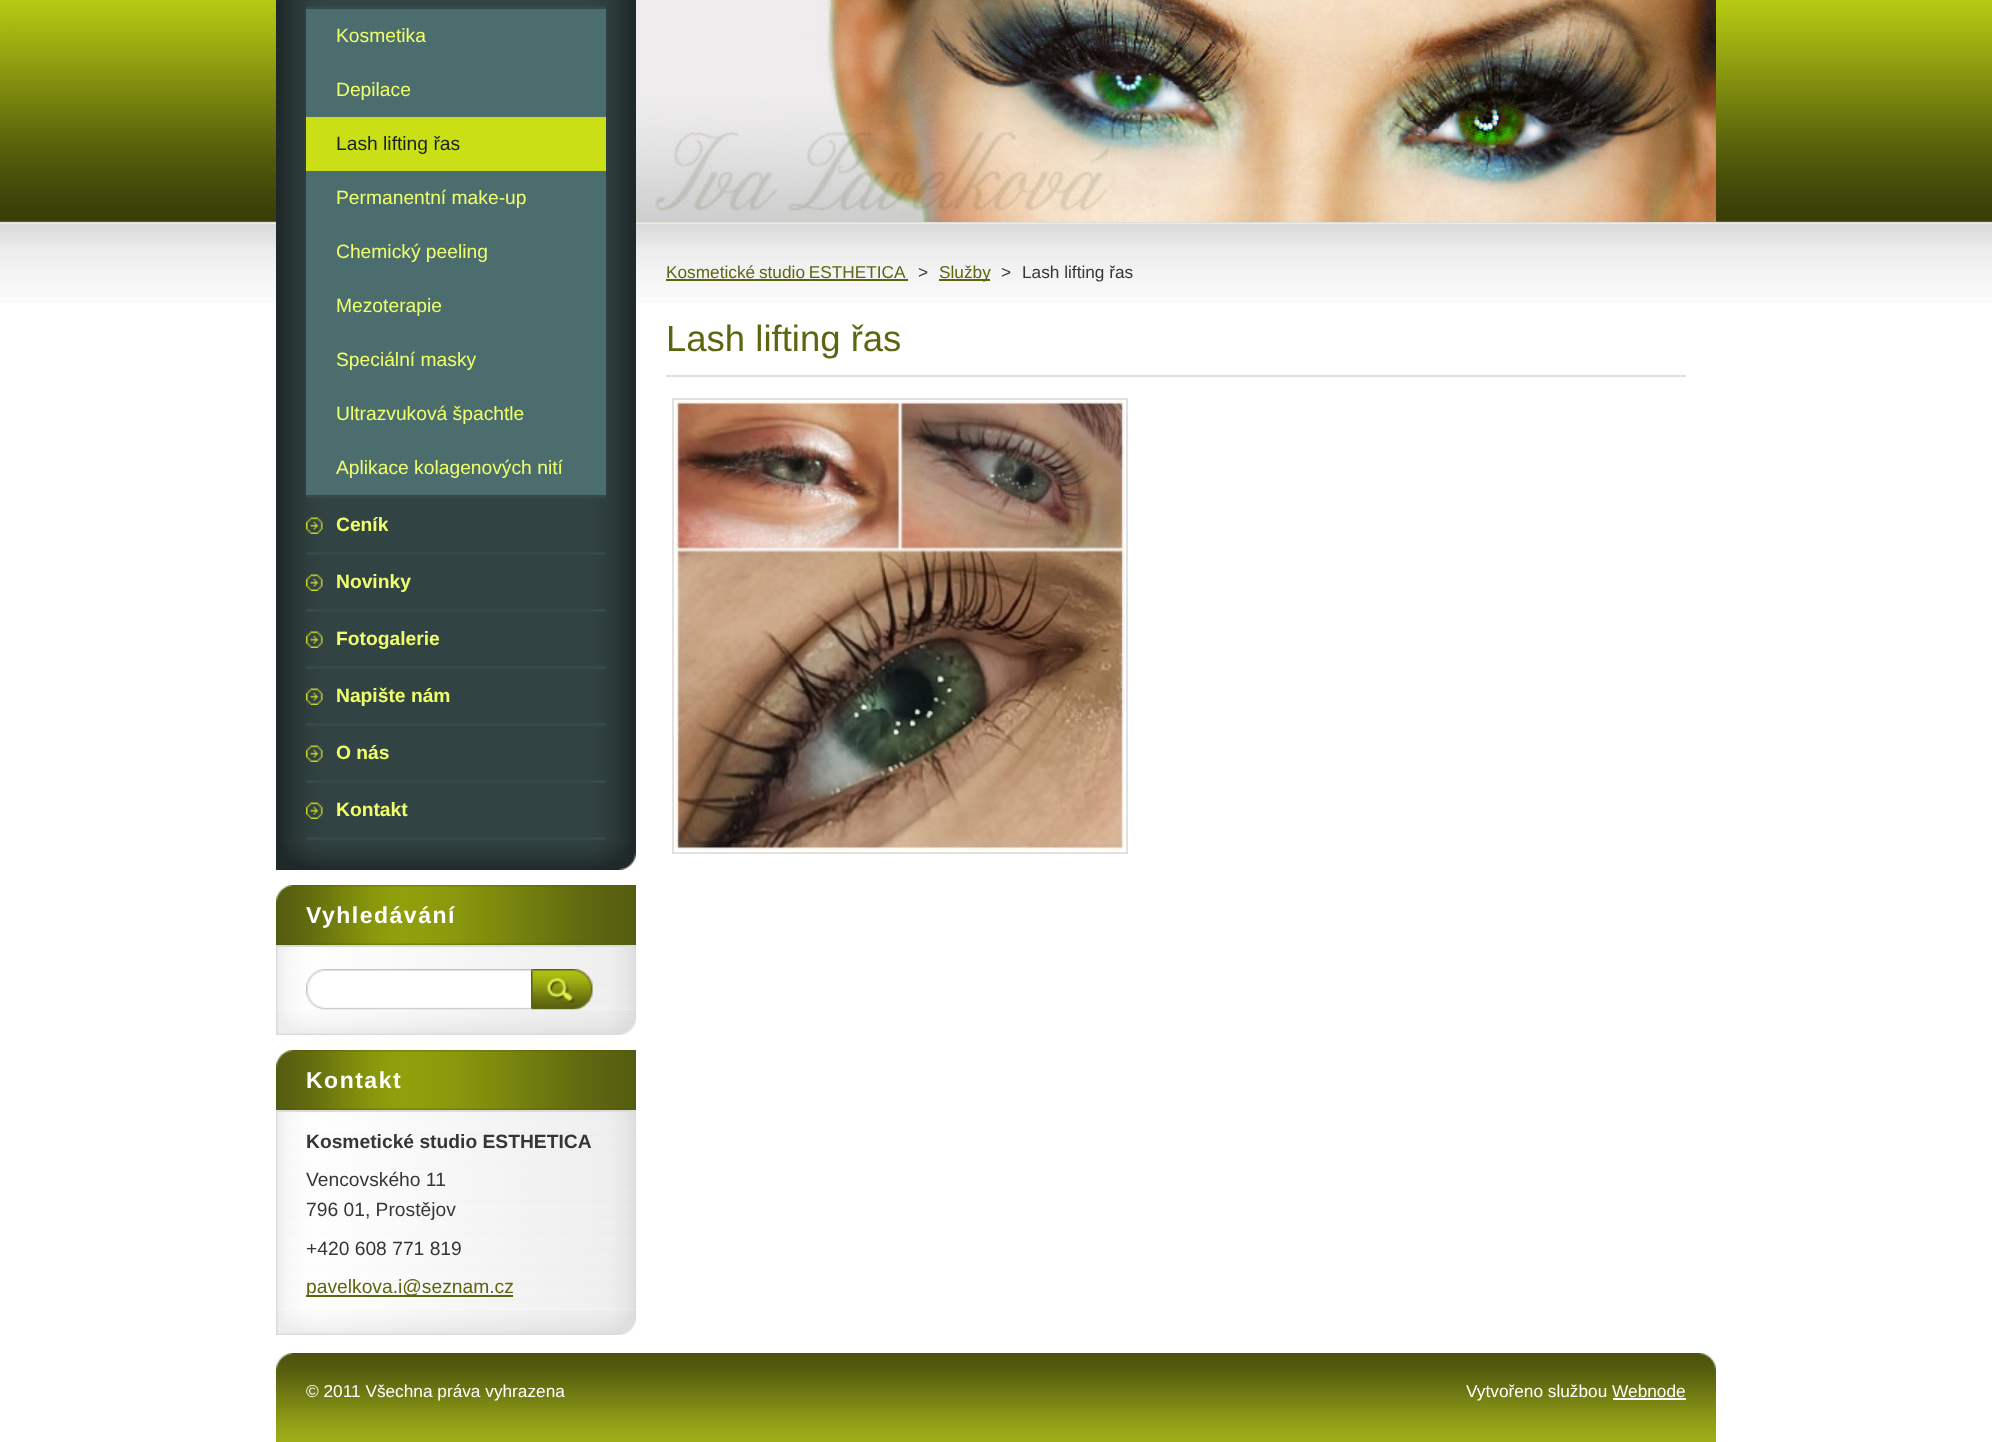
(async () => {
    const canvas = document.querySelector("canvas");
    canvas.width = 1992;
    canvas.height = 1442;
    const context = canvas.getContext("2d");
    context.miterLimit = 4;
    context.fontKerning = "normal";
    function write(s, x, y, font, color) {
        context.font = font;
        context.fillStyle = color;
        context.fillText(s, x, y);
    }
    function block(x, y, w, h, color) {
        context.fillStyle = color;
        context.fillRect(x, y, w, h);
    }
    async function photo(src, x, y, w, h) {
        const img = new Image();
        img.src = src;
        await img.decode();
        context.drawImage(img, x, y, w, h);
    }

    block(0, 0, 1992, 1442, "rgb(255, 255, 255)");
    await photo("media/1.png", 0, 0, 1992, 303);
    await photo("media/2.png", 276, 840, 360, 30);
    await photo("media/3.png", 276, 0, 360, 840);
    block(306, 495, 300, 3, "rgb(53, 73, 73)");
    block(306, 6, 300, 3, "rgb(53, 73, 73)");
    block(306, 9, 300, 108, "rgb(75, 109, 109)");
    write("Kosmetika", 336, 42, "19.25px Liberation Sans", "rgb(240, 255, 109)");
    write("Depilace", 336, 96, "19.25px Liberation Sans", "rgb(240, 255, 109)");
    block(306, 117, 300, 54, "rgb(202, 223, 22)");
    write("Lash lifting řas", 336, 150, "19.25px Liberation Sans", "rgb(28, 34, 34)");
    block(306, 171, 300, 324, "rgb(75, 109, 109)");
    write("Permanentní make-up", 336, 204, "19.25px Liberation Sans", "rgb(240, 255, 109)");
    write("Chemický peeling", 336, 258, "19.25px Liberation Sans", "rgb(240, 255, 109)");
    write("Mezoterapie", 336, 312, "19.25px Liberation Sans", "rgb(240, 255, 109)");
    write("Speciální masky", 336, 366, "19.25px Liberation Sans", "rgb(240, 255, 109)");
    write("Ultrazvuková špachtle", 336, 420, "19.25px Liberation Sans", "rgb(240, 255, 109)");
    write("Aplikace kolagenových nití", 336, 474, "19.25px Liberation Sans", "rgb(240, 255, 109)");
    block(306, 552, 300, 3, "rgb(53, 73, 73)");
    await photo("media/4.png", 306, 517, 17, 17);
    write("Ceník", 336, 531, "bold 19.25px Liberation Sans", "rgb(240, 255, 109)");
    block(306, 609, 300, 3, "rgb(53, 73, 73)");
    await photo("media/4.png", 306, 574, 17, 17);
    write("Novinky", 336, 588, "bold 19.25px Liberation Sans", "rgb(240, 255, 109)");
    block(306, 666, 300, 3, "rgb(53, 73, 73)");
    await photo("media/4.png", 306, 631, 17, 17);
    write("Fotogalerie", 336, 645, "bold 19.25px Liberation Sans", "rgb(240, 255, 109)");
    block(306, 723, 300, 3, "rgb(53, 73, 73)");
    await photo("media/4.png", 306, 688, 17, 17);
    write("Napište nám", 336, 702, "bold 19.25px Liberation Sans", "rgb(240, 255, 109)");
    block(306, 780, 300, 3, "rgb(53, 73, 73)");
    await photo("media/4.png", 306, 745, 17, 17);
    write("O nás", 336, 759, "bold 19.25px Liberation Sans", "rgb(240, 255, 109)");
    block(306, 837, 300, 3, "rgb(53, 73, 73)");
    await photo("media/4.png", 306, 802, 17, 17);
    write("Kontakt", 336, 816, "bold 19.25px Liberation Sans", "rgb(240, 255, 109)");
    await photo("media/5.png", 276, 1009, 360, 26);
    await photo("media/6.png", 276, 885, 360, 60);
    context.letterSpacing = "1.5px";
    write("Vyhledávání", 306, 923, "bold 23px Liberation Sans", "rgb(255, 255, 255)");
    await photo("media/7.png", 276, 947, 360, 63);
    block(276, 945, 360, 2, "rgb(219, 219, 219)");
    await photo("media/8.png", 306, 969, 227, 41);
    await photo("media/9.png", 531, 969, 62, 41);
    await photo("media/5.png", 276, 1309, 360, 26);
    await photo("media/6.png", 276, 1050, 360, 60);
    write("Kontakt", 306, 1088, "bold 23px Liberation Sans", "rgb(255, 255, 255)");
    await photo("media/10.png", 276, 1112, 360, 198);
    block(276, 1110, 360, 2, "rgb(219, 219, 219)");
    context.letterSpacing = "0px";
    write("Kosmetické studio ESTHETICA", 306, 1148, "bold 19.25px Liberation Sans", "rgb(54, 54, 54)");
    write("Vencovského 11", 306, 1186, "19.25px Liberation Sans", "rgb(54, 54, 54)");
    write("796 01, Prostějov", 306, 1216, "19.25px Liberation Sans", "rgb(54, 54, 54)");
    write("+420 608 771 819", 306, 1255, "19.25px Liberation Sans", "rgb(54, 54, 54)");
    block(306, 1295, 207, 2, "rgb(93, 101, 14)");
    write("pavelkova.i@seznam.cz", 306, 1293, "19.25px Liberation Sans", "rgb(93, 101, 14)");
    await photo("media/11.png", 636, 0, 1080, 222);
    context.wordSpacing = "-1px";
    write("Kosmetické studio ESTHETICA", 666, 278, "17.25px Liberation Sans", "rgb(93, 101, 14)");
    block(666, 279, 242, 2, "rgb(93, 101, 14)");
    context.wordSpacing = "0px";
    write(">", 918, 278, "17.25px Liberation Sans", "rgb(54, 54, 54)");
    block(939, 279, 51, 2, "rgb(93, 101, 14)");
    write("Služby", 939, 278, "17.25px Liberation Sans", "rgb(93, 101, 14)");
    write(">", 1001, 278, "17.25px Liberation Sans", "rgb(54, 54, 54)");
    write("Lash lifting řas", 1022, 278, "17.25px Liberation Sans", "rgb(54, 54, 54)");
    block(666, 375, 1020, 2, "rgb(225, 225, 225)");
    write("Lash lifting řas", 666, 351, "36.5px Liberation Sans", "rgb(93, 101, 14)");
    context.strokeStyle = "rgb(225, 225, 225)";
    context.lineWidth = 2;
    context.strokeRect(673, 399, 454, 454);
    await photo("media/12.png", 675, 400, 450, 451);
    await photo("media/13.png", 276, 1353, 1440, 89);
    write("© 2011 Všechna práva vyhrazena", 306, 1397, "17.25px Liberation Sans", "rgb(255, 255, 255)");
    write("Vytvořeno službou Webnode", 1466, 1397, "17.25px Liberation Sans", "rgb(255, 255, 255)");
    block(1613, 1398, 73, 2, "rgb(255, 255, 255)");
})();
